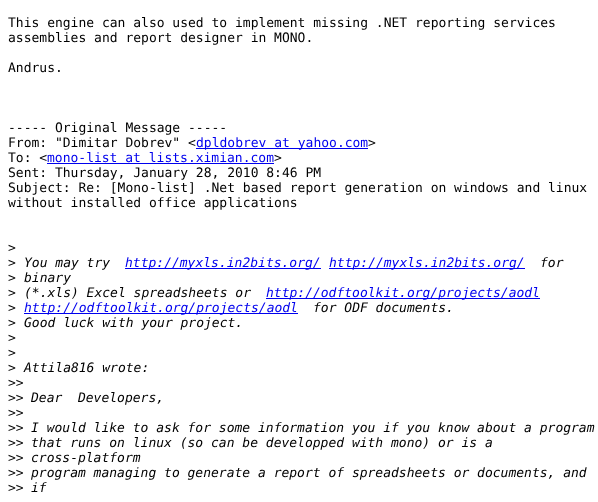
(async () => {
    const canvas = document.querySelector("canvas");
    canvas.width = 598;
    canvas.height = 502;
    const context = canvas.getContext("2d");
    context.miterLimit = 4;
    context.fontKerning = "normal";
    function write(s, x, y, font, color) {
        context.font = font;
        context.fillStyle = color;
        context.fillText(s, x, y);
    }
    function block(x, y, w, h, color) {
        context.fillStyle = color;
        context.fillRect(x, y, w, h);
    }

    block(0, 0, 598, 502, "rgb(255, 255, 255)");
    write("This engine can also used to implement missing .NET reporting services", 8, 27, "13px DejaVu Sans Mono", "rgb(0, 0, 0)");
    write("assemblies and report designer in MONO.", 8, 42, "13px DejaVu Sans Mono", "rgb(0, 0, 0)");
    write("Andrus.", 8, 72, "13px DejaVu Sans Mono", "rgb(0, 0, 0)");
    write("----- Original Message -----", 8, 132, "13px DejaVu Sans Mono", "rgb(0, 0, 0)");
    write("From: \"Dimitar Dobrev\" <", 8, 147, "13px DejaVu Sans Mono", "rgb(0, 0, 0)");
    block(196, 148, 172, 1, "rgb(0, 0, 238)");
    write("dpldobrev at yahoo.com", 196, 147, "13px DejaVu Sans Mono", "rgb(0, 0, 238)");
    write(">", 368, 147, "13px DejaVu Sans Mono", "rgb(0, 0, 0)");
    write("To: <", 8, 162, "13px DejaVu Sans Mono", "rgb(0, 0, 0)");
    write("mono-list at lists.ximian.com", 47, 162, "13px DejaVu Sans Mono", "rgb(0, 0, 238)");
    block(47, 163, 227, 1, "rgb(0, 0, 238)");
    write(">", 274, 162, "13px DejaVu Sans Mono", "rgb(0, 0, 0)");
    write("Sent: Thursday, January 28, 2010 8:46 PM", 8, 177, "13px DejaVu Sans Mono", "rgb(0, 0, 0)");
    write("Subject: Re: [Mono-list] .Net based report generation on windows and linux", 8, 192, "13px DejaVu Sans Mono", "rgb(0, 0, 0)");
    write("without installed office applications", 8, 207, "13px DejaVu Sans Mono", "rgb(0, 0, 0)");
    write(">", 8, 252, "13px DejaVu Sans Mono", "rgb(0, 0, 0)");
    write(">", 8, 267, "13px DejaVu Sans Mono", "rgb(0, 0, 0)");
    write("You may try", 24, 267, "italic 13px DejaVu Sans Mono", "rgb(0, 0, 0)");
    block(125, 268, 196, 1, "rgb(0, 0, 238)");
    write("http://myxls.in2bits.org/", 125, 267, "italic 13px DejaVu Sans Mono", "rgb(0, 0, 238)");
    block(329, 268, 196, 1, "rgb(0, 0, 238)");
    write("http://myxls.in2bits.org/", 329, 267, "italic 13px DejaVu Sans Mono", "rgb(0, 0, 238)");
    write("for", 540, 267, "italic 13px DejaVu Sans Mono", "rgb(0, 0, 0)");
    write(">", 8, 282, "13px DejaVu Sans Mono", "rgb(0, 0, 0)");
    write("binary", 24, 282, "italic 13px DejaVu Sans Mono", "rgb(0, 0, 0)");
    write(">", 8, 297, "13px DejaVu Sans Mono", "rgb(0, 0, 0)");
    write("(*.xls) Excel spreadsheets or", 24, 297, "italic 13px DejaVu Sans Mono", "rgb(0, 0, 0)");
    block(266, 298, 274, 1, "rgb(0, 0, 238)");
    write("http://odftoolkit.org/projects/aodl", 266, 297, "italic 13px DejaVu Sans Mono", "rgb(0, 0, 238)");
    write(">", 8, 312, "13px DejaVu Sans Mono", "rgb(0, 0, 0)");
    block(24, 313, 274, 1, "rgb(0, 0, 238)");
    write("http://odftoolkit.org/projects/aodl", 24, 312, "italic 13px DejaVu Sans Mono", "rgb(0, 0, 238)");
    write("for ODF documents.", 313, 312, "italic 13px DejaVu Sans Mono", "rgb(0, 0, 0)");
    write(">", 8, 327, "13px DejaVu Sans Mono", "rgb(0, 0, 0)");
    write("Good luck with your project.", 24, 327, "italic 13px DejaVu Sans Mono", "rgb(0, 0, 0)");
    write(">", 8, 342, "13px DejaVu Sans Mono", "rgb(0, 0, 0)");
    write(">", 8, 357, "13px DejaVu Sans Mono", "rgb(0, 0, 0)");
    write(">", 8, 372, "13px DejaVu Sans Mono", "rgb(0, 0, 0)");
    write("Attila816 wrote:", 24, 372, "italic 13px DejaVu Sans Mono", "rgb(0, 0, 0)");
    write(">>", 8, 387, "13px DejaVu Sans Mono", "rgb(0, 0, 0)");
    write(">>", 8, 402, "13px DejaVu Sans Mono", "rgb(0, 0, 0)");
    write("Dear  Developers,", 31, 402, "italic 13px DejaVu Sans Mono", "rgb(0, 0, 0)");
    write(">>", 8, 417, "13px DejaVu Sans Mono", "rgb(0, 0, 0)");
    write(">>", 8, 432, "13px DejaVu Sans Mono", "rgb(0, 0, 0)");
    write("I would like to ask for some information you if you know about a program", 31, 432, "italic 13px DejaVu Sans Mono", "rgb(0, 0, 0)");
    write(">>", 8, 447, "13px DejaVu Sans Mono", "rgb(0, 0, 0)");
    write("that runs on linux (so can be developped with mono) or is a", 31, 447, "italic 13px DejaVu Sans Mono", "rgb(0, 0, 0)");
    write(">>", 8, 462, "13px DejaVu Sans Mono", "rgb(0, 0, 0)");
    write("cross-platform", 31, 462, "italic 13px DejaVu Sans Mono", "rgb(0, 0, 0)");
    write(">>", 8, 477, "13px DejaVu Sans Mono", "rgb(0, 0, 0)");
    write("program managing to generate a report of spreadsheets or documents, and", 31, 477, "italic 13px DejaVu Sans Mono", "rgb(0, 0, 0)");
    write(">>", 8, 492, "13px DejaVu Sans Mono", "rgb(0, 0, 0)");
    write("if", 31, 492, "italic 13px DejaVu Sans Mono", "rgb(0, 0, 0)");
})();
